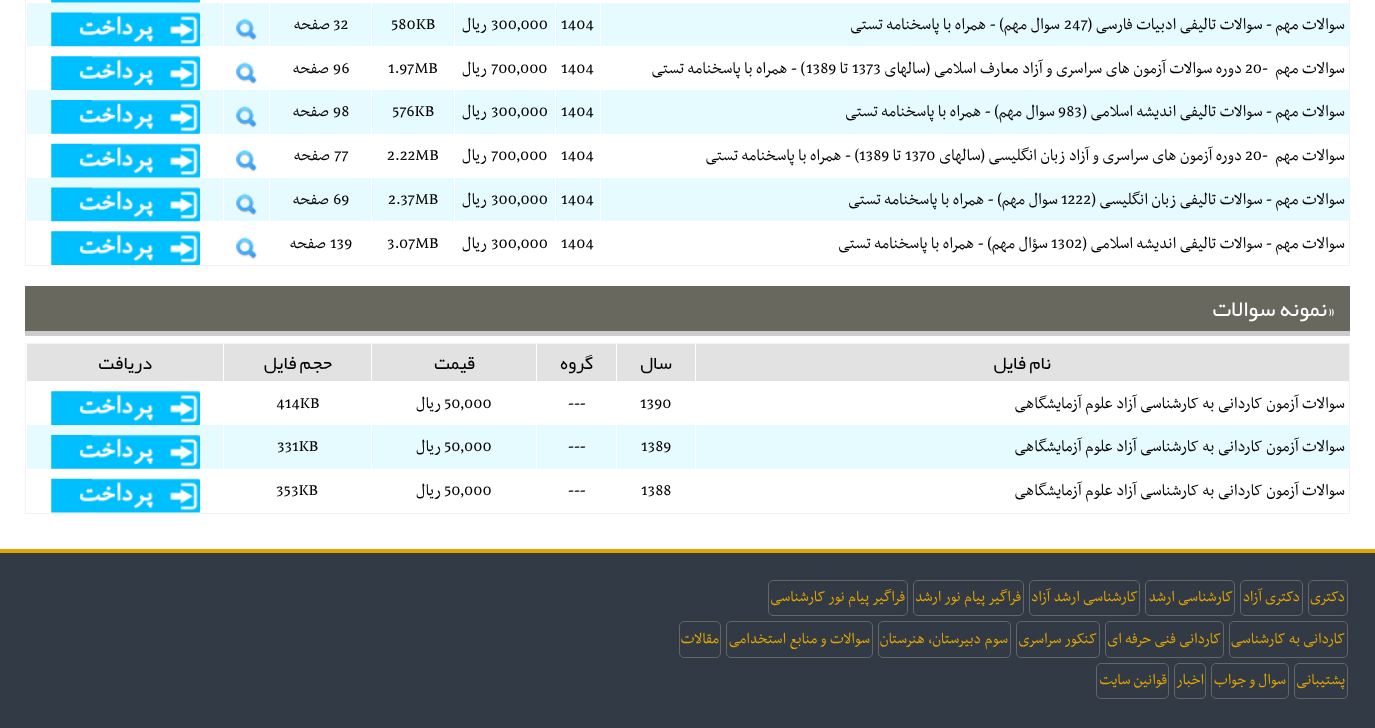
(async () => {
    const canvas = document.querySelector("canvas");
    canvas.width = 1375;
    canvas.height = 728;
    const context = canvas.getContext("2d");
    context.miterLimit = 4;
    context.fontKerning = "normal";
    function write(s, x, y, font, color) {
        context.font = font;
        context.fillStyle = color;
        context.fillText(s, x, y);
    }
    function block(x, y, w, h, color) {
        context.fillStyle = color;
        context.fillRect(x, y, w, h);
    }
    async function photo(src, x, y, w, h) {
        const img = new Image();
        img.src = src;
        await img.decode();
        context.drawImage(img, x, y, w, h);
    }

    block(0, 0, 1375, 728, "rgb(255, 255, 255)");
    context.strokeStyle = "rgb(243, 243, 243)";
    context.strokeRect(25.5, -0.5, 1324, 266);
    await photo("media/1.png", 51, 0, 149, 3);
    block(27, 3, 1322, 43, "rgb(230, 251, 255)");
    block(600, 3, 1, 43, "rgb(255, 255, 255)");
    context.direction = "rtl";
    write("سوالات مهم", 1345, 29, "18.75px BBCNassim", "rgb(0, 0, 0)");
    context.direction = "ltr";
    write("247", 1064, 29, "18.75px BBCNassim", "rgb(0, 0, 0)");
    context.direction = "rtl";
    write("- سوالات تالیفی ادبیات فارسی (", 1272, 29, "18.75px BBCNassim", "rgb(0, 0, 0)");
    write("سوال مهم) - همراه با پاسخنامه تستی", 1060, 29, "18.75px BBCNassim", "rgb(0, 0, 0)");
    block(555, 3, 1, 43, "rgb(255, 255, 255)");
    context.direction = "ltr";
    write("1404", 561, 29, "18.75px BBCNassim", "rgb(0, 0, 0)");
    block(454, 3, 1, 43, "rgb(255, 255, 255)");
    write("300,000", 491, 29, "18.75px BBCNassim", "rgb(0, 0, 0)");
    context.direction = "rtl";
    write("ريال", 487, 29, "18.75px BBCNassim", "rgb(0, 0, 0)");
    block(371, 3, 1, 43, "rgb(255, 255, 255)");
    context.direction = "ltr";
    write("580KB", 391, 29, "18.75px BBCNassim", "rgb(0, 0, 0)");
    block(269, 3, 1, 43, "rgb(255, 255, 255)");
    write("32", 333, 29, "18.75px BBCNassim", "rgb(0, 0, 0)");
    context.direction = "rtl";
    write("صفحه", 330, 29, "18.75px BBCNassim", "rgb(0, 0, 0)");
    block(223, 3, 1, 43, "rgb(255, 255, 255)");
    await photo("media/2.png", 236, 18, 21, 22);
    await photo("media/3.png", 51, 12, 149, 35);
    write("سوالات مهم", 1345, 73, "18.75px BBCNassim", "rgb(0, 0, 0)");
    context.direction = "ltr";
    write("20-", 1245, 73, "18.75px BBCNassim", "rgb(0, 0, 0)");
    context.direction = "rtl";
    write("دوره سوالات آزمون های سراسری و آزاد معارف اسلامی (سالهای", 1242, 73, "18.75px BBCNassim", "rgb(0, 0, 0)");
    context.direction = "ltr";
    write("1373", 852, 73, "18.75px BBCNassim", "rgb(0, 0, 0)");
    context.direction = "rtl";
    write("تا", 848, 73, "18.75px BBCNassim", "rgb(0, 0, 0)");
    context.direction = "ltr";
    write("1389", 806, 73, "18.75px BBCNassim", "rgb(0, 0, 0)");
    context.direction = "rtl";
    write(") - همراه با پاسخنامه تستی", 805, 73, "18.75px BBCNassim", "rgb(0, 0, 0)");
    context.direction = "ltr";
    write("1404", 561, 73, "18.75px BBCNassim", "rgb(0, 0, 0)");
    write("700,000", 491, 73, "18.75px BBCNassim", "rgb(0, 0, 0)");
    context.direction = "rtl";
    write("ريال", 487, 73, "18.75px BBCNassim", "rgb(0, 0, 0)");
    context.direction = "ltr";
    write("1.97MB", 388, 73, "18.75px BBCNassim", "rgb(0, 0, 0)");
    write("96", 333, 73, "18.75px BBCNassim", "rgb(0, 0, 0)");
    context.direction = "rtl";
    write("صفحه", 329, 73, "18.75px BBCNassim", "rgb(0, 0, 0)");
    await photo("media/4.png", 236, 62, 21, 22);
    await photo("media/5.png", 51, 56, 149, 34);
    block(27, 90, 1322, 44, "rgb(230, 251, 255)");
    block(600, 90, 1, 44, "rgb(255, 255, 255)");
    write("سوالات مهم", 1345, 116, "18.75px BBCNassim", "rgb(0, 0, 0)");
    write("- سوالات تالیفی اندیشه اسلامی (", 1272, 116, "18.75px BBCNassim", "rgb(0, 0, 0)");
    context.direction = "ltr";
    write("983", 1058, 116, "18.75px BBCNassim", "rgb(0, 0, 0)");
    context.direction = "rtl";
    write("سوال مهم) - همراه با پاسخنامه تستی", 1055, 116, "18.75px BBCNassim", "rgb(0, 0, 0)");
    block(555, 90, 1, 44, "rgb(255, 255, 255)");
    context.direction = "ltr";
    write("1404", 561, 116, "18.75px BBCNassim", "rgb(0, 0, 0)");
    block(454, 90, 1, 44, "rgb(255, 255, 255)");
    write("300,000", 491, 116, "18.75px BBCNassim", "rgb(0, 0, 0)");
    context.direction = "rtl";
    write("ريال", 487, 116, "18.75px BBCNassim", "rgb(0, 0, 0)");
    block(371, 90, 1, 44, "rgb(255, 255, 255)");
    context.direction = "ltr";
    write("576KB", 392, 116, "18.75px BBCNassim", "rgb(0, 0, 0)");
    block(269, 90, 1, 44, "rgb(255, 255, 255)");
    write("98", 333, 116, "18.75px BBCNassim", "rgb(0, 0, 0)");
    context.direction = "rtl";
    write("صفحه", 329, 116, "18.75px BBCNassim", "rgb(0, 0, 0)");
    block(223, 90, 1, 44, "rgb(255, 255, 255)");
    await photo("media/6.png", 236, 106, 21, 22);
    await photo("media/7.png", 51, 100, 149, 34);
    write("سوالات مهم", 1345, 160, "18.75px BBCNassim", "rgb(0, 0, 0)");
    context.direction = "ltr";
    write("20-", 1245, 160, "18.75px BBCNassim", "rgb(0, 0, 0)");
    context.direction = "rtl";
    write("دوره آزمون های سراسری و آزاد زبان انگلیسی (سالهای", 1242, 160, "18.75px BBCNassim", "rgb(0, 0, 0)");
    context.direction = "ltr";
    write("1370", 905, 160, "18.75px BBCNassim", "rgb(0, 0, 0)");
    context.direction = "rtl";
    write("تا", 901, 160, "18.75px BBCNassim", "rgb(0, 0, 0)");
    context.direction = "ltr";
    write("1389", 859, 160, "18.75px BBCNassim", "rgb(0, 0, 0)");
    context.direction = "rtl";
    write(") - همراه با پاسخنامه تستی", 859, 160, "18.75px BBCNassim", "rgb(0, 0, 0)");
    context.direction = "ltr";
    write("1404", 561, 160, "18.75px BBCNassim", "rgb(0, 0, 0)");
    write("700,000", 491, 160, "18.75px BBCNassim", "rgb(0, 0, 0)");
    context.direction = "rtl";
    write("ريال", 487, 160, "18.75px BBCNassim", "rgb(0, 0, 0)");
    context.direction = "ltr";
    write("2.22MB", 387, 160, "18.75px BBCNassim", "rgb(0, 0, 0)");
    write("77", 334, 160, "18.75px BBCNassim", "rgb(0, 0, 0)");
    context.direction = "rtl";
    write("صفحه", 330, 160, "18.75px BBCNassim", "rgb(0, 0, 0)");
    await photo("media/8.png", 236, 150, 21, 22);
    await photo("media/9.png", 51, 143, 149, 35);
    block(27, 178, 1322, 43, "rgb(230, 251, 255)");
    block(600, 178, 1, 43, "rgb(255, 255, 255)");
    write("سوالات مهم", 1345, 204, "18.75px BBCNassim", "rgb(0, 0, 0)");
    write("- سوالات تالیفی زبان انگلیسی (", 1272, 204, "18.75px BBCNassim", "rgb(0, 0, 0)");
    context.direction = "ltr";
    write("1222", 1061, 204, "18.75px BBCNassim", "rgb(0, 0, 0)");
    context.direction = "rtl";
    write("سوال مهم) - همراه با پاسخنامه تستی", 1058, 204, "18.75px BBCNassim", "rgb(0, 0, 0)");
    block(555, 178, 1, 43, "rgb(255, 255, 255)");
    context.direction = "ltr";
    write("1404", 561, 204, "18.75px BBCNassim", "rgb(0, 0, 0)");
    block(454, 178, 1, 43, "rgb(255, 255, 255)");
    write("300,000", 491, 204, "18.75px BBCNassim", "rgb(0, 0, 0)");
    context.direction = "rtl";
    write("ريال", 487, 204, "18.75px BBCNassim", "rgb(0, 0, 0)");
    block(371, 178, 1, 43, "rgb(255, 255, 255)");
    context.direction = "ltr";
    write("2.37MB", 388, 204, "18.75px BBCNassim", "rgb(0, 0, 0)");
    block(269, 178, 1, 43, "rgb(255, 255, 255)");
    write("69", 333, 204, "18.75px BBCNassim", "rgb(0, 0, 0)");
    context.direction = "rtl";
    write("صفحه", 329, 204, "18.75px BBCNassim", "rgb(0, 0, 0)");
    block(223, 178, 1, 43, "rgb(255, 255, 255)");
    await photo("media/2.png", 236, 193, 21, 22);
    await photo("media/3.png", 51, 187, 149, 35);
    write("سوالات مهم", 1345, 248, "18.75px BBCNassim", "rgb(0, 0, 0)");
    write("- سوالات تالیفی اندیشه اسلامی (", 1272, 248, "18.75px BBCNassim", "rgb(0, 0, 0)");
    context.direction = "ltr";
    write("1302", 1051, 248, "18.75px BBCNassim", "rgb(0, 0, 0)");
    context.direction = "rtl";
    write("سؤال مهم) - همراه با پاسخنامه تستی", 1048, 248, "18.75px BBCNassim", "rgb(0, 0, 0)");
    context.direction = "ltr";
    write("1404", 561, 248, "18.75px BBCNassim", "rgb(0, 0, 0)");
    write("300,000", 491, 248, "18.75px BBCNassim", "rgb(0, 0, 0)");
    context.direction = "rtl";
    write("ريال", 487, 248, "18.75px BBCNassim", "rgb(0, 0, 0)");
    context.direction = "ltr";
    write("3.07MB", 387, 248, "18.75px BBCNassim", "rgb(0, 0, 0)");
    write("139", 330, 248, "18.75px BBCNassim", "rgb(0, 0, 0)");
    context.direction = "rtl";
    write("صفحه", 326, 248, "18.75px BBCNassim", "rgb(0, 0, 0)");
    await photo("media/4.png", 236, 237, 21, 22);
    await photo("media/5.png", 51, 231, 149, 34);
    block(25, 286, 1325, 45, "rgb(104, 104, 95)");
    block(25, 331, 1325, 5, "rgb(204, 204, 204)");
    context.direction = "ltr";
    write("»", 1327, 316, "22.5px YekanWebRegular", "rgb(255, 255, 255)");
    context.direction = "rtl";
    write("نمونه سوالات", 1327, 316, "22.5px YekanWebRegular", "rgb(255, 255, 255)");
    context.strokeRect(25.5, 343.5, 1324, 170);
    block(27, 344, 1322, 37, "rgb(226, 226, 226)");
    block(695, 344, 1, 37, "rgb(255, 255, 255)");
    write("نام فایل", 1051, 369, "18.75px YekanWebRegular", "rgb(0, 0, 0)");
    block(616, 344, 1, 37, "rgb(255, 255, 255)");
    write("سال", 672, 369, "18.75px YekanWebRegular", "rgb(0, 0, 0)");
    block(536, 344, 1, 37, "rgb(255, 255, 255)");
    write("گروه", 593, 369, "18.75px YekanWebRegular", "rgb(0, 0, 0)");
    block(371, 344, 1, 37, "rgb(255, 255, 255)");
    write("قیمت", 475, 369, "18.75px YekanWebRegular", "rgb(0, 0, 0)");
    block(223, 344, 1, 37, "rgb(255, 255, 255)");
    write("حجم فایل", 332, 369, "18.75px YekanWebRegular", "rgb(0, 0, 0)");
    write("دریافت", 152, 369, "18.75px YekanWebRegular", "rgb(0, 0, 0)");
    write("سوالات آزمون کاردانی به کارشناسی آزاد علوم آزمایشگاهی", 1345, 408, "18.75px BBCNassim", "rgb(0, 0, 0)");
    context.direction = "ltr";
    write("1390", 640, 408, "18.75px BBCNassim", "rgb(0, 0, 0)");
    write("---", 568, 408, "18.75px BBCNassim", "rgb(0, 0, 0)");
    write("50,000", 444, 408, "18.75px BBCNassim", "rgb(0, 0, 0)");
    context.direction = "rtl";
    write("ريال", 441, 408, "18.75px BBCNassim", "rgb(0, 0, 0)");
    context.direction = "ltr";
    write("414KB", 276, 408, "18.75px BBCNassim", "rgb(0, 0, 0)");
    await photo("media/5.png", 51, 391, 149, 34);
    block(27, 425, 1322, 44, "rgb(230, 251, 255)");
    block(695, 425, 1, 44, "rgb(255, 255, 255)");
    context.direction = "rtl";
    write("سوالات آزمون کاردانی به کارشناسی آزاد علوم آزمایشگاهی", 1345, 451, "18.75px BBCNassim", "rgb(0, 0, 0)");
    block(616, 425, 1, 44, "rgb(255, 255, 255)");
    context.direction = "ltr";
    write("1389", 641, 451, "18.75px BBCNassim", "rgb(0, 0, 0)");
    block(536, 425, 1, 44, "rgb(255, 255, 255)");
    write("---", 568, 451, "18.75px BBCNassim", "rgb(0, 0, 0)");
    block(371, 425, 1, 44, "rgb(255, 255, 255)");
    write("50,000", 444, 451, "18.75px BBCNassim", "rgb(0, 0, 0)");
    context.direction = "rtl";
    write("ريال", 441, 451, "18.75px BBCNassim", "rgb(0, 0, 0)");
    block(223, 425, 1, 44, "rgb(255, 255, 255)");
    context.direction = "ltr";
    write("331KB", 277, 451, "18.75px BBCNassim", "rgb(0, 0, 0)");
    await photo("media/10.png", 51, 435, 149, 34);
    context.direction = "rtl";
    write("سوالات آزمون کاردانی به کارشناسی آزاد علوم آزمایشگاهی", 1345, 495, "18.75px BBCNassim", "rgb(0, 0, 0)");
    context.direction = "ltr";
    write("1388", 641, 495, "18.75px BBCNassim", "rgb(0, 0, 0)");
    write("---", 568, 495, "18.75px BBCNassim", "rgb(0, 0, 0)");
    write("50,000", 444, 495, "18.75px BBCNassim", "rgb(0, 0, 0)");
    context.direction = "rtl";
    write("ريال", 441, 495, "18.75px BBCNassim", "rgb(0, 0, 0)");
    context.direction = "ltr";
    write("353KB", 276, 495, "18.75px BBCNassim", "rgb(0, 0, 0)");
    await photo("media/9.png", 51, 478, 149, 35);
    block(0, 553, 1375, 175, "rgb(50, 58, 69)");
    block(0, 549, 1375, 4, "rgb(226, 165, 0)");
    context.beginPath();
    context.roundRect(1308.5, 580.5, 39, 35, 4.5);
    context.strokeStyle = "rgb(102, 102, 102)";
    context.stroke();
    context.direction = "rtl";
    write("دکتری", 1345, 601, "17.5px BBCNassim", "rgb(226, 165, 0)");
    context.beginPath();
    context.roundRect(1240.5, 580.5, 62, 35, 4.5);
    context.stroke();
    write("دکتری آزاد", 1300, 601, "17.5px BBCNassim", "rgb(226, 165, 0)");
    context.beginPath();
    context.roundRect(1145.5, 580.5, 89, 35, 4.5);
    context.stroke();
    write("کارشناسی ارشد", 1233, 601, "17.5px BBCNassim", "rgb(226, 165, 0)");
    context.beginPath();
    context.roundRect(1029.5, 580.5, 110, 35, 4.5);
    context.stroke();
    write("کارشناسی ارشد آزاد", 1138, 601, "17.5px BBCNassim", "rgb(226, 165, 0)");
    context.beginPath();
    context.roundRect(913.5, 580.5, 110, 35, 4.5);
    context.stroke();
    write("فراگیر پیام نور ارشد", 1021, 601, "17.5px BBCNassim", "rgb(226, 165, 0)");
    context.beginPath();
    context.roundRect(768.5, 580.5, 139, 35, 4.5);
    context.stroke();
    write("فراگیر پیام نور کارشناسی", 905, 601, "17.5px BBCNassim", "rgb(226, 165, 0)");
    context.beginPath();
    context.roundRect(1229.5, 621.5, 118, 36, 4.5);
    context.stroke();
    write("کاردانی به کارشناسی", 1345, 643, "17.5px BBCNassim", "rgb(226, 165, 0)");
    context.beginPath();
    context.roundRect(1105.5, 621.5, 118, 36, 4.5);
    context.stroke();
    write("کاردانی فنی حرفه ای", 1221, 643, "17.5px BBCNassim", "rgb(226, 165, 0)");
    context.beginPath();
    context.roundRect(1016.5, 621.5, 83, 36, 4.5);
    context.stroke();
    write("کنکور سراسری", 1097, 643, "17.5px BBCNassim", "rgb(226, 165, 0)");
    context.beginPath();
    context.roundRect(878.5, 621.5, 132, 36, 4.5);
    context.stroke();
    write("سوم دبیرستان، هنرستان", 1008, 643, "17.5px BBCNassim", "rgb(226, 165, 0)");
    context.beginPath();
    context.roundRect(726.5, 621.5, 146, 36, 4.5);
    context.stroke();
    write("سوالات و منابع استخدامی", 870, 643, "17.5px BBCNassim", "rgb(226, 165, 0)");
    context.beginPath();
    context.roundRect(679.5, 621.5, 41, 36, 4.5);
    context.stroke();
    write("مقالات", 719, 643, "17.5px BBCNassim", "rgb(226, 165, 0)");
    context.beginPath();
    context.roundRect(1294.5, 663.5, 53, 35, 4.5);
    context.stroke();
    write("پشتیبانی", 1345, 684, "17.5px BBCNassim", "rgb(226, 165, 0)");
    context.beginPath();
    context.roundRect(1211.5, 663.5, 77, 35, 4.5);
    context.stroke();
    write("سوال و جواب", 1286, 684, "17.5px BBCNassim", "rgb(226, 165, 0)");
    context.beginPath();
    context.roundRect(1174.5, 663.5, 31, 35, 4.5);
    context.stroke();
    write("اخبار", 1204, 684, "17.5px BBCNassim", "rgb(226, 165, 0)");
    context.beginPath();
    context.roundRect(1096.5, 663.5, 72, 35, 4.5);
    context.stroke();
    write("قوانین سایت", 1167, 684, "17.5px BBCNassim", "rgb(226, 165, 0)");
})();
